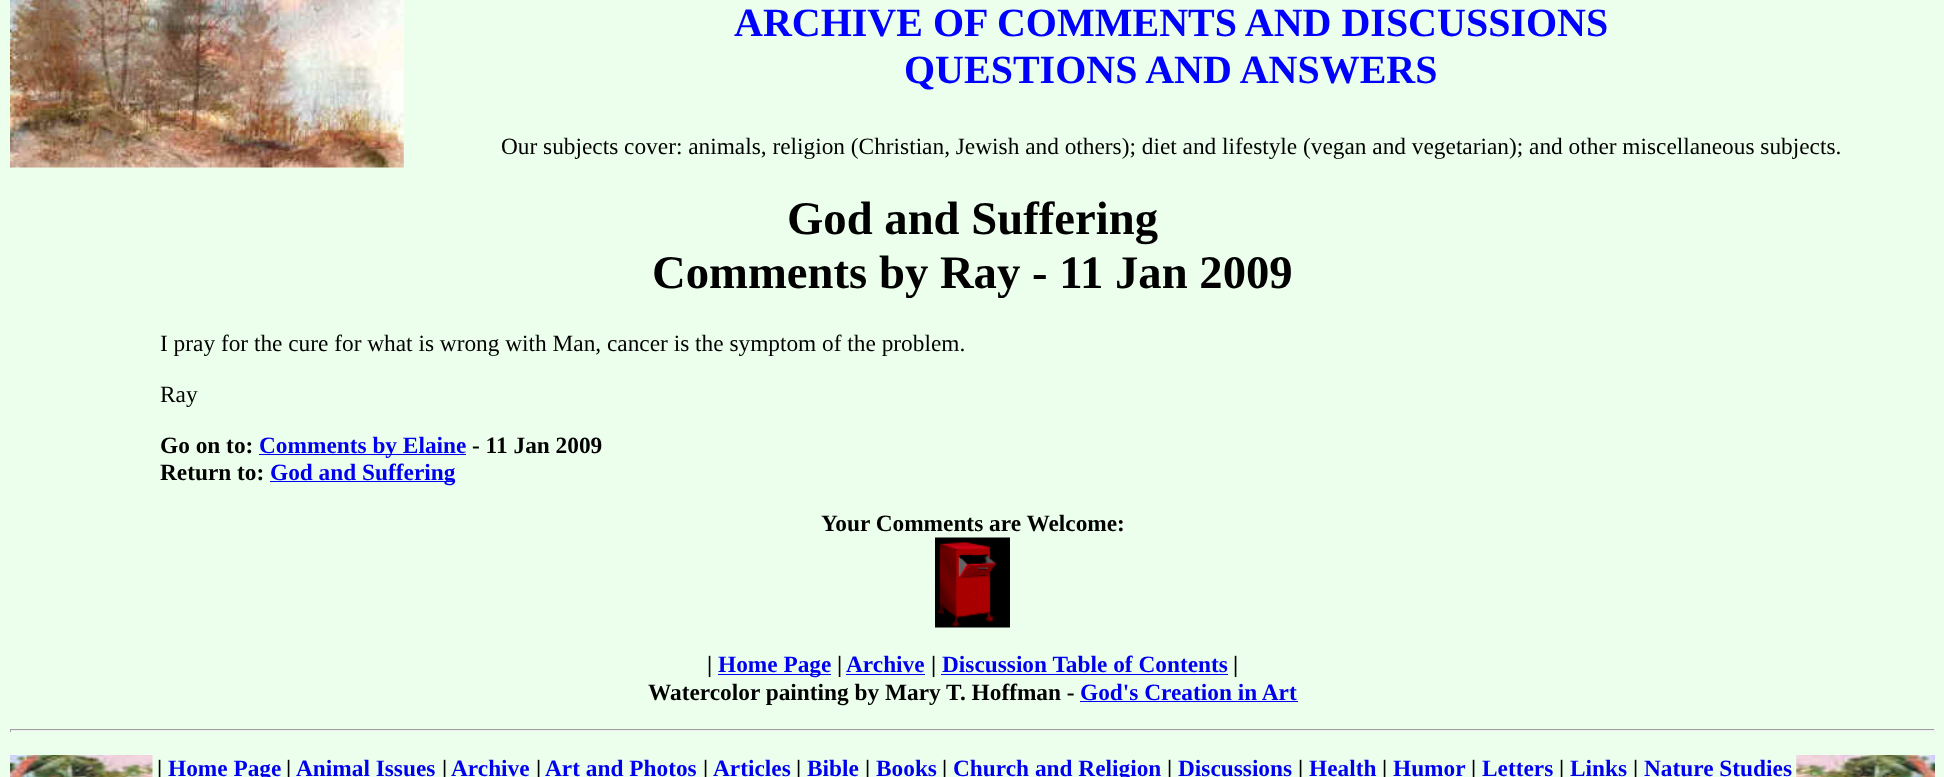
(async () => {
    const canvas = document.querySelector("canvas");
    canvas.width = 1944;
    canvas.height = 777;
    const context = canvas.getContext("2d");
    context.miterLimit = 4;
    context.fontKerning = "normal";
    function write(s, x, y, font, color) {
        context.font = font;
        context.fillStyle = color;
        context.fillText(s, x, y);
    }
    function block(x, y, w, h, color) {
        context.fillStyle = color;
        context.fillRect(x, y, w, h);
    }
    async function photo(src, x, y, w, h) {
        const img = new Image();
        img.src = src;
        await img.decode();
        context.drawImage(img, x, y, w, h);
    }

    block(0, 0, 1944, 777, "rgb(236, 255, 236)");
    await photo("media/1.png", 10, 0, 394, 168);
    write("ARCHIVE OF COMMENTS AND DISCUSSIONS", 734, 36, "bold 40px Liberation Serif", "rgb(0, 0, 255)");
    write("QUESTIONS AND ANSWERS", 904, 83, "bold 40px Liberation Serif", "rgb(0, 0, 255)");
    write("Our subjects cover: animals, religion (Christian, Jewish and others); diet and lifestyle (vegan and vegetarian); and other miscellaneous subjects.", 501, 154, "23.33px Liberation Serif", "rgb(0, 0, 0)");
    write("God and Suffering", 787, 234, "bold 46.7px Liberation Serif", "rgb(0, 0, 0)");
    write("Comments by Ray - 11 Jan 2009", 652, 288, "bold 46.7px Liberation Serif", "rgb(0, 0, 0)");
    write("I pray for the cure for what is wrong with Man, cancer is the symptom of the problem.", 160, 351, "23.33px Liberation Serif", "rgb(0, 0, 0)");
    write("Ray", 160, 402, "23.33px Liberation Serif", "rgb(0, 0, 0)");
    write("Go on to:", 160, 453, "bold 23.33px Liberation Serif", "rgb(0, 0, 0)");
    block(259, 454, 207, 1, "rgb(0, 0, 238)");
    write("Comments by Elaine", 259, 453, "bold 23.33px Liberation Serif", "rgb(0, 0, 238)");
    write("- 11 Jan 2009", 472, 453, "bold 23.33px Liberation Serif", "rgb(0, 0, 0)");
    write("Return to:", 160, 480, "bold 23.33px Liberation Serif", "rgb(0, 0, 0)");
    block(270, 481, 185, 1, "rgb(0, 0, 238)");
    write("God and Suffering", 270, 480, "bold 23.33px Liberation Serif", "rgb(0, 0, 238)");
    write("Your Comments are Welcome:", 821, 531, "bold 23.33px Liberation Serif", "rgb(0, 0, 0)");
    await photo("media/2.png", 935, 537, 75, 91);
    write("|", 707, 672, "bold 23.33px Liberation Serif", "rgb(0, 0, 0)");
    block(718, 674, 113, 1, "rgb(0, 0, 238)");
    write("Home Page", 718, 672, "bold 23.33px Liberation Serif", "rgb(0, 0, 238)");
    write("|", 837, 672, "bold 23.33px Liberation Serif", "rgb(0, 0, 0)");
    write("Archive", 846, 672, "bold 23.33px Liberation Serif", "rgb(0, 0, 238)");
    block(846, 674, 79, 1, "rgb(0, 0, 238)");
    write("|", 931, 672, "bold 23.33px Liberation Serif", "rgb(0, 0, 0)");
    write("Discussion Table of Contents", 942, 672, "bold 23.33px Liberation Serif", "rgb(0, 0, 238)");
    block(941, 674, 287, 1, "rgb(0, 0, 238)");
    write("|", 1233, 672, "bold 23.33px Liberation Serif", "rgb(0, 0, 0)");
    write("Watercolor painting by Mary T. Hoffman -", 648, 700, "bold 23.33px Liberation Serif", "rgb(0, 0, 0)");
    write("God's Creation in Art", 1080, 700, "bold 23.33px Liberation Serif", "rgb(0, 0, 238)");
    block(1080, 701, 218, 1, "rgb(0, 0, 238)");
    block(10, 729, 1925, 1, "rgb(159, 159, 159)");
    block(1934, 729, 1, 3, "rgb(238, 238, 238)");
    block(10, 730, 1925, 1, "rgb(238, 238, 238)");
    block(10, 729, 1, 3, "rgb(159, 159, 159)");
    await photo("media/3.png", 10, 755, 143, 22);
    write("|", 157, 776, "bold 23.33px Liberation Serif", "rgb(0, 0, 0)");
    write("Home Page", 168, 776, "bold 23.33px Liberation Serif", "rgb(0, 0, 238)");
    write("|", 286, 776, "bold 23.33px Liberation Serif", "rgb(0, 0, 0)");
    write("Animal Issues", 296, 776, "bold 23.33px Liberation Serif", "rgb(0, 0, 238)");
    write("|", 442, 776, "bold 23.33px Liberation Serif", "rgb(0, 0, 0)");
    write("Archive", 451, 776, "bold 23.33px Liberation Serif", "rgb(0, 0, 238)");
    write("|", 536, 776, "bold 23.33px Liberation Serif", "rgb(0, 0, 0)");
    write("Art and Photos", 545, 776, "bold 23.33px Liberation Serif", "rgb(0, 0, 238)");
    write("|", 703, 776, "bold 23.33px Liberation Serif", "rgb(0, 0, 0)");
    write("Articles", 713, 776, "bold 23.33px Liberation Serif", "rgb(0, 0, 238)");
    write("|", 796, 776, "bold 23.33px Liberation Serif", "rgb(0, 0, 0)");
    write("Bible", 807, 776, "bold 23.33px Liberation Serif", "rgb(0, 0, 238)");
    write("|", 865, 776, "bold 23.33px Liberation Serif", "rgb(0, 0, 0)");
    write("Books", 876, 776, "bold 23.33px Liberation Serif", "rgb(0, 0, 238)");
    write("|", 942, 776, "bold 23.33px Liberation Serif", "rgb(0, 0, 0)");
    write("Church and Religion", 953, 776, "bold 23.33px Liberation Serif", "rgb(0, 0, 238)");
    write("|", 1167, 776, "bold 23.33px Liberation Serif", "rgb(0, 0, 0)");
    write("Discussions", 1178, 776, "bold 23.33px Liberation Serif", "rgb(0, 0, 238)");
    write("|", 1298, 776, "bold 23.33px Liberation Serif", "rgb(0, 0, 0)");
    write("Health", 1309, 776, "bold 23.33px Liberation Serif", "rgb(0, 0, 238)");
    write("|", 1382, 776, "bold 23.33px Liberation Serif", "rgb(0, 0, 0)");
    write("Humor", 1393, 776, "bold 23.33px Liberation Serif", "rgb(0, 0, 238)");
    write("|", 1471, 776, "bold 23.33px Liberation Serif", "rgb(0, 0, 0)");
    write("Letters", 1482, 776, "bold 23.33px Liberation Serif", "rgb(0, 0, 238)");
    write("|", 1559, 776, "bold 23.33px Liberation Serif", "rgb(0, 0, 0)");
    write("Links", 1570, 776, "bold 23.33px Liberation Serif", "rgb(0, 0, 238)");
    write("|", 1633, 776, "bold 23.33px Liberation Serif", "rgb(0, 0, 0)");
    write("Nature Studies", 1644, 776, "bold 23.33px Liberation Serif", "rgb(0, 0, 238)");
    await photo("media/4.png", 1796, 755, 139, 22);
})();
